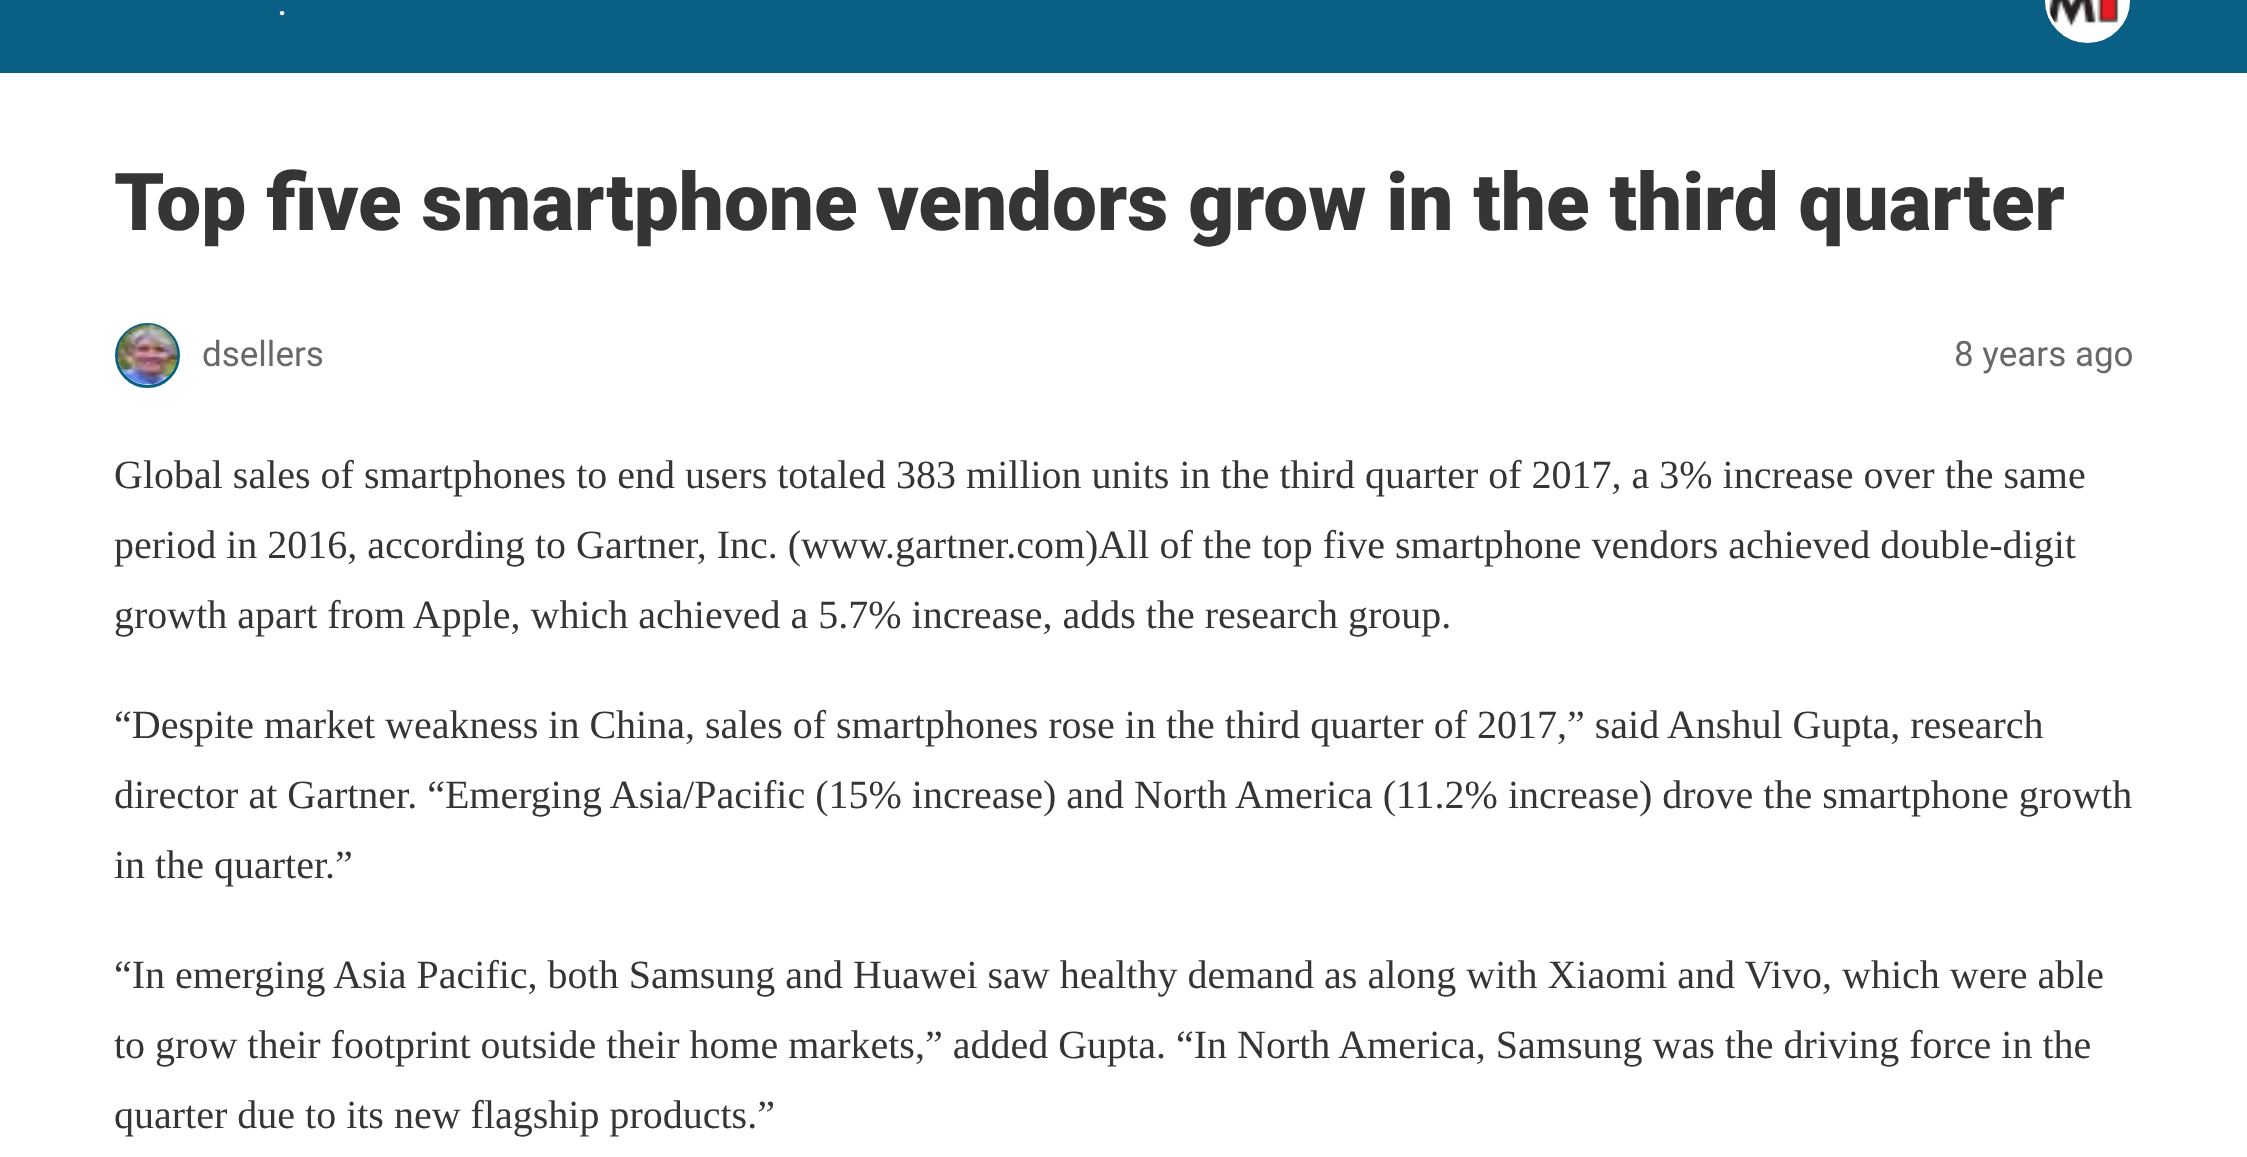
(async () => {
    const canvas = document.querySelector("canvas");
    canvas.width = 2247;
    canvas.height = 1157;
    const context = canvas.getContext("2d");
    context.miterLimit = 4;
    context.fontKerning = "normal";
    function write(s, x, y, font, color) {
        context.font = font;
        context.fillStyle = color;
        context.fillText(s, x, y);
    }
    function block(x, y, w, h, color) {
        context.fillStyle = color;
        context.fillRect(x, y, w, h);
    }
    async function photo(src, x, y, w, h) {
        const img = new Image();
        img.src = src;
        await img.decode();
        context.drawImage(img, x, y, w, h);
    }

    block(0, 0, 2247, 1157, "rgb(255, 255, 255)");
    block(0, 0, 2247, 73, "rgb(10, 95, 133)");
    write(".", 277, 15, "40px Roboto", "rgb(255, 255, 255)");
    context.beginPath();
    context.arc(2087.5, 0.5, 41, 0, Math.PI * 2);
    context.fill();
    context.strokeStyle = "rgb(255, 255, 255)";
    context.lineWidth = 3;
    context.stroke();
    await photo("media/1.png", 2049, 0, 70, 28);
    write("Top five smartphone vendors grow in the third quarter", 114, 230, "900 80px Roboto", "rgb(53, 53, 53)");
    context.beginPath();
    context.arc(147.5, 355.5, 31, 0, Math.PI * 2);
    context.strokeStyle = "rgb(10, 95, 133)";
    context.stroke();
    await photo("media/2.png", 117, 324, 61, 61);
    write("dsellers", 202, 366, "35px Roboto", "rgb(105, 105, 105)");
    write("8 years ago", 1954, 366, "35px Roboto", "rgb(105, 105, 105)");
    write("Global sales of smartphones to end users totaled 383 million units in the third quarter of 2017, a 3% increase over the same", 114, 488, "40px Liberation Serif", "rgb(53, 53, 53)");
    write("period in 2016, according to Gartner, Inc. (www.gartner.com)All of the top five smartphone vendors achieved double-digit", 114, 558, "40px Liberation Serif", "rgb(53, 53, 53)");
    write("growth apart from Apple, which achieved a 5.7% increase, adds the research group.", 114, 628, "40px Liberation Serif", "rgb(53, 53, 53)");
    write("“Despite market weakness in China, sales of smartphones rose in the third quarter of 2017,” said Anshul Gupta, research", 114, 738, "40px Liberation Serif", "rgb(53, 53, 53)");
    write("director at Gartner. “Emerging Asia/Pacific (15% increase) and North America (11.2% increase) drove the smartphone growth", 114, 808, "40px Liberation Serif", "rgb(53, 53, 53)");
    write("in the quarter.”", 114, 878, "40px Liberation Serif", "rgb(53, 53, 53)");
    write("“In emerging Asia Pacific, both Samsung and Huawei saw healthy demand as along with Xiaomi and Vivo, which were able", 114, 988, "40px Liberation Serif", "rgb(53, 53, 53)");
    write("to grow their footprint outside their home markets,” added Gupta. “In North America, Samsung was the driving force in the", 114, 1058, "40px Liberation Serif", "rgb(53, 53, 53)");
    write("quarter due to its new flagship products.”", 114, 1128, "40px Liberation Serif", "rgb(53, 53, 53)");
})();
